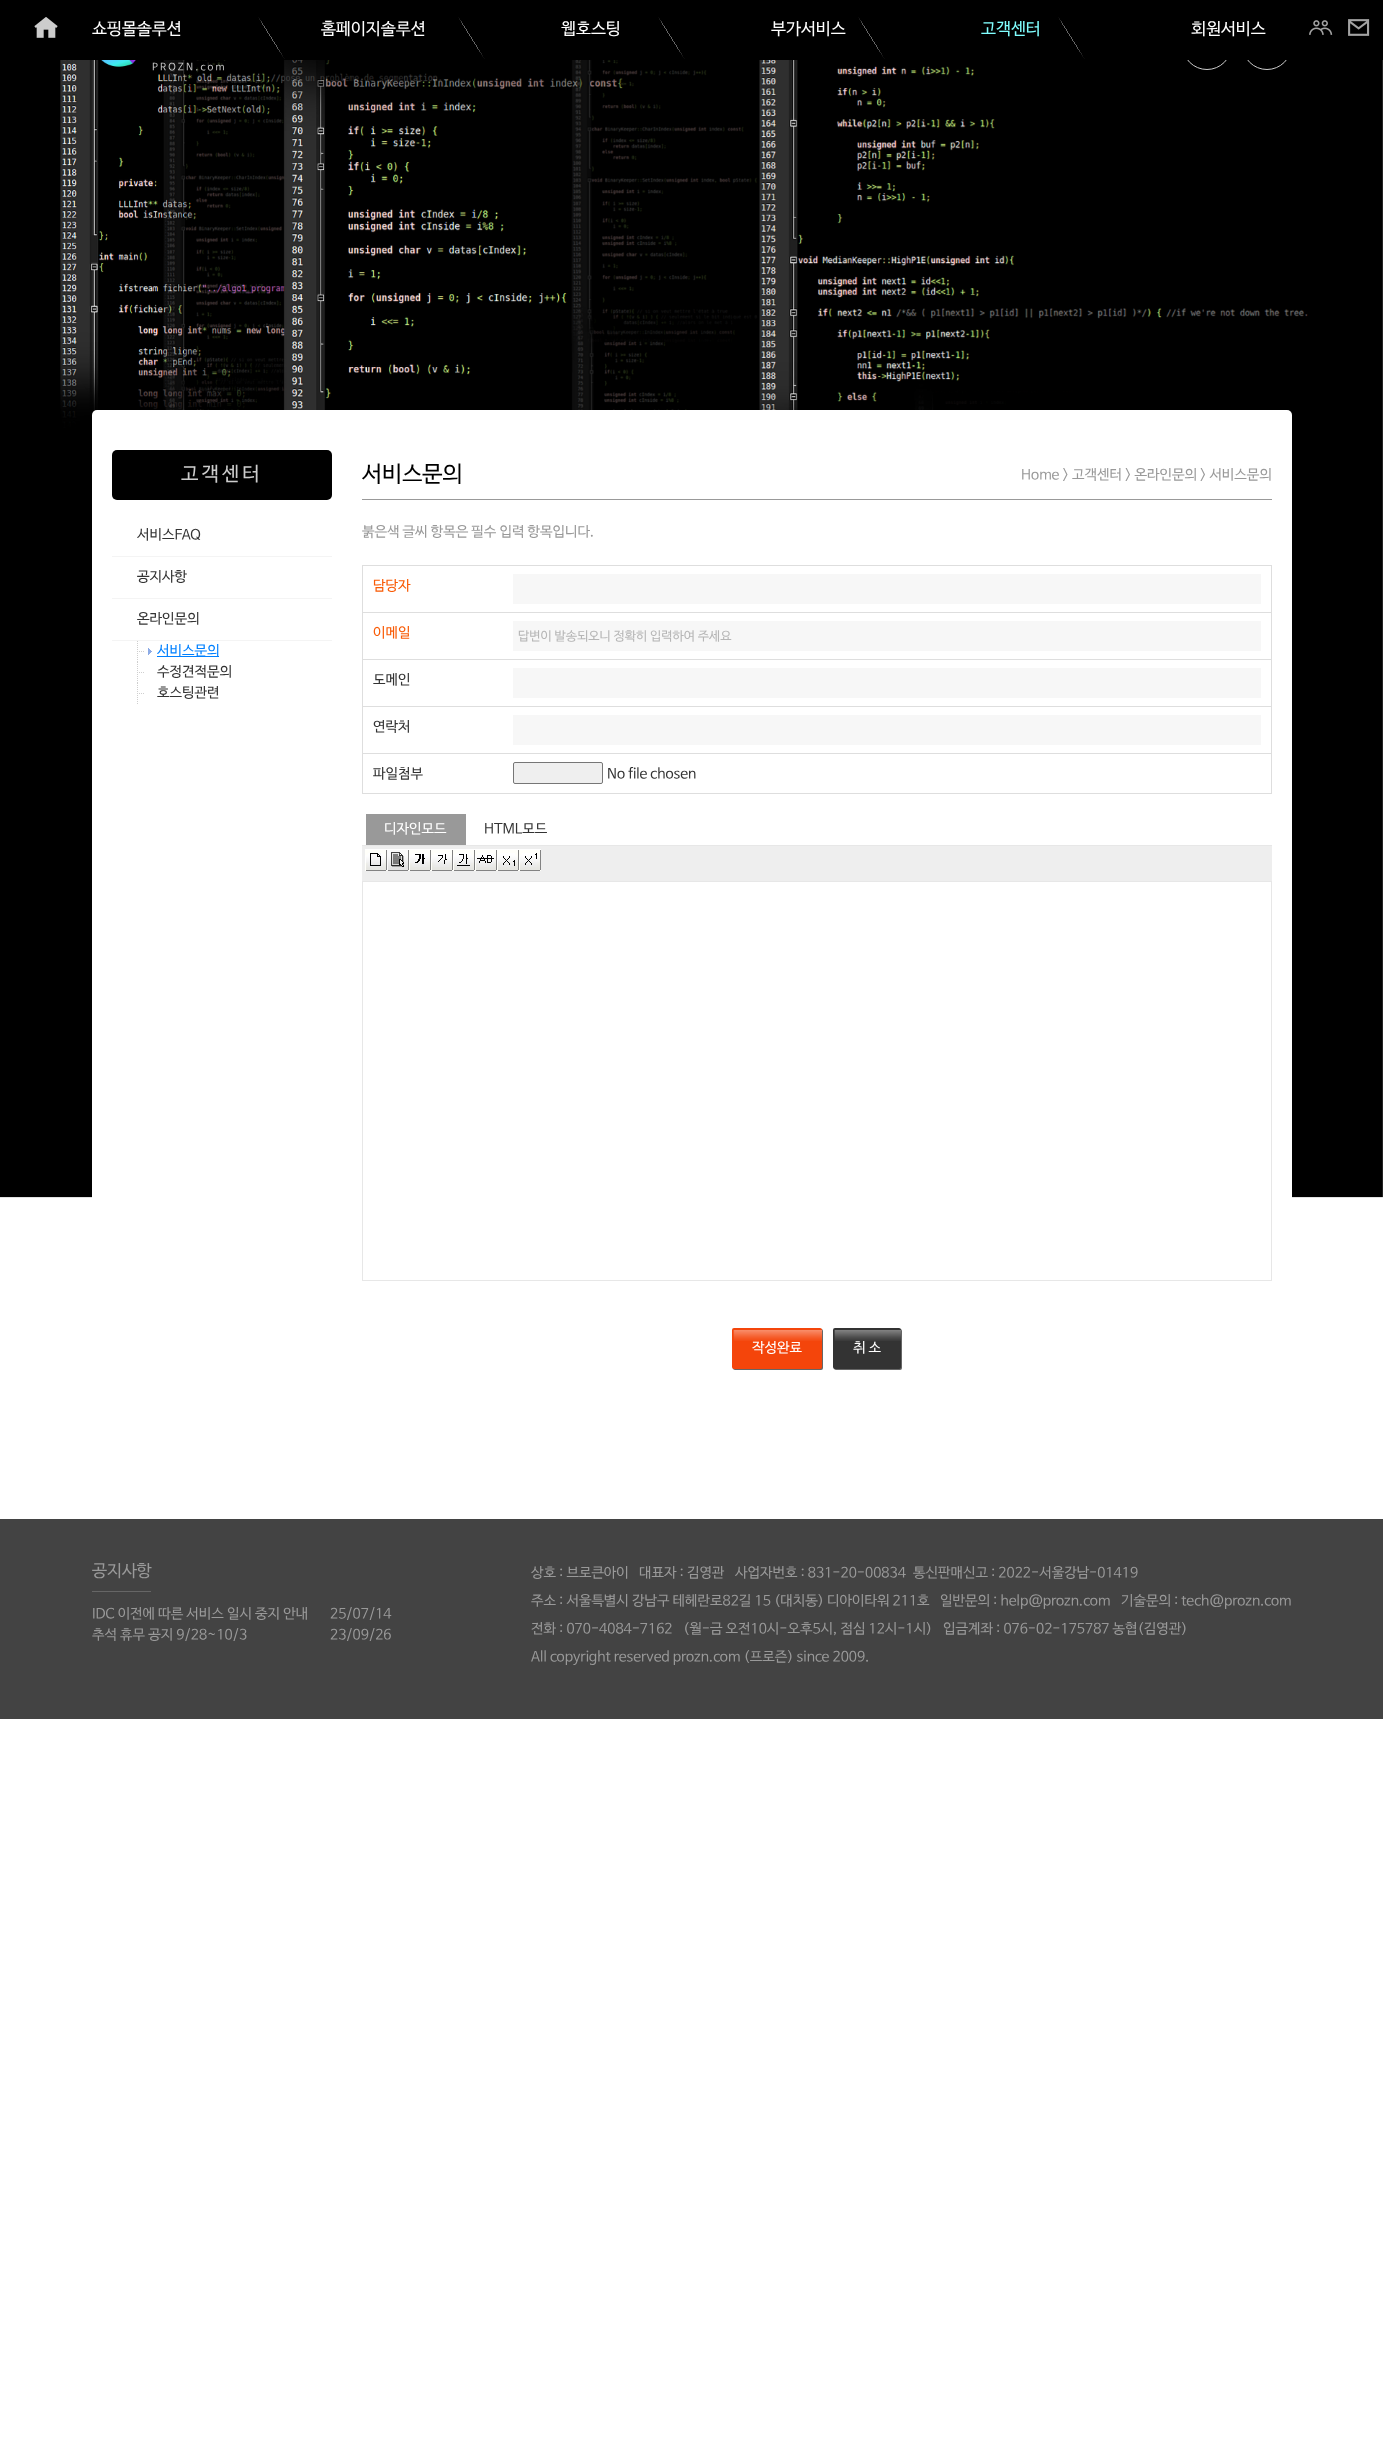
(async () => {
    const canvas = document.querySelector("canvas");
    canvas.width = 1383;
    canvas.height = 2444;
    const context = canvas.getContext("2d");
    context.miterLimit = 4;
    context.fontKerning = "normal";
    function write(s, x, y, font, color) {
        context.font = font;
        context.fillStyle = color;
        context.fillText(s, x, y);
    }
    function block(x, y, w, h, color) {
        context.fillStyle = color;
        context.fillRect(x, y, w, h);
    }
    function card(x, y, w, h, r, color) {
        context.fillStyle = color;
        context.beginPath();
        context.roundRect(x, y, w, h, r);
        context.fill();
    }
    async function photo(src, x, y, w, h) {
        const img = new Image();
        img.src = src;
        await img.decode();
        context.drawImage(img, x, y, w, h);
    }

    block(0, 0, 1383, 2444, "rgb(255, 255, 255)");
    await photo("media/1.png", 0, 60, 1383, 1138);
    context.beginPath();
    context.arc(1207, 45, 24.5, 0, Math.PI * 2);
    context.strokeStyle = "rgb(204, 204, 204)";
    context.stroke();
    context.beginPath();
    context.arc(1267, 45, 24.5, 0, Math.PI * 2);
    context.stroke();
    block(0, 0, 1383, 60, "rgb(0, 0, 0)");
    await photo("media/2.png", 34, 17, 24, 21);
    await photo("media/3.png", 258, 17, 27, 42);
    write("쇼핑몰솔루션", 92, 34, "16.75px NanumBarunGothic", "rgb(255, 255, 255)");
    await photo("media/3.png", 458, 17, 27, 42);
    write("홈페이지솔루션", 321, 34, "16.75px NanumBarunGothic", "rgb(255, 255, 255)");
    await photo("media/3.png", 658, 17, 27, 42);
    write("웹호스팅", 561, 34, "16.75px NanumBarunGothic", "rgb(255, 255, 255)");
    await photo("media/3.png", 858, 17, 27, 42);
    write("부가서비스", 771, 34, "16.75px NanumBarunGothic", "rgb(255, 255, 255)");
    await photo("media/3.png", 1058, 17, 27, 42);
    write("고객센터", 981, 34, "16.75px NanumBarunGothic", "rgb(128, 255, 255)");
    write("회원서비스", 1191, 34, "16.75px NanumBarunGothic", "rgb(255, 255, 255)");
    await photo("media/4.png", 1309, 20, 24, 15);
    await photo("media/5.png", 1348, 19, 22, 17);
    await photo("media/6.png", 101, 60, 35, 7);
    context.letterSpacing = "2.25px";
    write("PROZN.com", 152, 70, "10px NanumBarunGothic", "rgb(204, 204, 204)");
    card(92, 410, 1200, 1059, 5, "rgb(255, 255, 255)");
    card(112, 450, 220, 50, 5, "rgb(0, 0, 0)");
    context.letterSpacing = "3px";
    write("고객센터", 181, 480, "19.5px NanumBarunGothic", "rgb(204, 204, 204)");
    block(112, 556, 220, 1, "rgb(244, 244, 244)");
    context.letterSpacing = "0px";
    write("서비스FAQ", 137, 539, "14px NanumBarunGothic", "rgb(51, 51, 51)");
    block(112, 598, 220, 1, "rgb(244, 244, 244)");
    write("공지사항", 137, 581, "14px NanumBarunGothic", "rgb(51, 51, 51)");
    block(112, 640, 220, 1, "rgb(244, 244, 244)");
    write("온라인문의", 137, 623, "14px NanumBarunGothic", "rgb(51, 51, 51)");
    await photo("media/7.png", 148, 648, 4, 7);
    await photo("media/8.png", 137, 641, 7, 21);
    block(157, 656, 62, 1, "rgb(0, 128, 255)");
    write("서비스문의", 157, 655, "14px NanumBarunGothic", "rgb(0, 128, 255)");
    await photo("media/8.png", 137, 662, 7, 21);
    write("수정견적문의", 157, 676, "14px NanumBarunGothic", "rgb(51, 51, 51)");
    await photo("media/8.png", 137, 683, 7, 21);
    write("호스팅관련", 157, 697, "14px NanumBarunGothic", "rgb(51, 51, 51)");
    block(362, 499, 910, 1, "rgb(153, 153, 153)");
    write("서비스문의", 362, 481, "22.5px NanumBarunGothic", "rgb(0, 0, 0)");
    write("Home > 고객센터 > 온라인문의 > 서비스문의", 1021, 479, "14px NanumBarunGothic", "rgb(153, 153, 153)");
    write("붉은색 글씨 항목은 필수 입력 항목입니다.", 362, 536, "14px NanumBarunGothic", "rgb(153, 153, 153)");
    block(362, 565, 910, 1, "rgb(222, 222, 222)");
    block(1271, 565, 1, 47, "rgb(222, 222, 222)");
    block(362, 565, 1, 47, "rgb(222, 222, 222)");
    write("담당자", 373, 590, "14px NanumBarunGothic", "rgb(249, 91, 6)");
    block(513, 574, 748, 30, "rgb(247, 247, 247)");
    block(362, 612, 910, 1, "rgb(222, 222, 222)");
    block(1271, 612, 1, 47, "rgb(222, 222, 222)");
    block(362, 612, 1, 47, "rgb(222, 222, 222)");
    write("이메일", 373, 637, "14px NanumBarunGothic", "rgb(249, 91, 6)");
    block(513, 621, 748, 30, "rgb(247, 247, 247)");
    write("답변이 발송되오니 정확히 입력하여 주세요", 518, 640, "12.6px NanumBarunGothic", "rgb(182, 182, 182)");
    block(362, 659, 910, 1, "rgb(222, 222, 222)");
    block(1271, 659, 1, 47, "rgb(222, 222, 222)");
    block(362, 659, 1, 47, "rgb(222, 222, 222)");
    write("도메인", 373, 684, "14px NanumBarunGothic", "rgb(51, 51, 51)");
    block(513, 668, 748, 30, "rgb(247, 247, 247)");
    block(362, 706, 910, 1, "rgb(222, 222, 222)");
    block(1271, 706, 1, 47, "rgb(222, 222, 222)");
    block(362, 706, 1, 47, "rgb(222, 222, 222)");
    write("연락처", 373, 731, "14px NanumBarunGothic", "rgb(51, 51, 51)");
    block(513, 715, 748, 30, "rgb(247, 247, 247)");
    context.strokeStyle = "rgb(222, 222, 222)";
    context.strokeRect(362.5, 753.5, 909, 40);
    write("파일첨부", 373, 778, "14px NanumBarunGothic", "rgb(51, 51, 51)");
    context.fillStyle = "rgb(239, 239, 239)";
    context.beginPath();
    context.roundRect(513.5, 762.5, 89, 21, 1.5);
    context.fill();
    context.strokeStyle = "rgb(118, 118, 118)";
    context.stroke();
    write("No file chosen", 607, 778, "14px NanumBarunGothic", "rgb(51, 51, 51)");
    block(366, 814, 100, 31, "rgb(153, 153, 153)");
    write("디자인모드", 384, 833, "14px NanumBarunGothic", "rgb(255, 255, 255)");
    write("HTML모드", 484, 833, "14px NanumBarunGothic", "rgb(51, 51, 51)");
    block(362, 846, 910, 35, "rgb(238, 238, 238)");
    block(362, 845, 910, 1, "rgb(231, 231, 231)");
    await photo("media/9.png", 365, 849, 22, 22);
    await photo("media/10.png", 387, 849, 22, 22);
    await photo("media/11.png", 409, 849, 22, 22);
    await photo("media/12.png", 431, 849, 22, 22);
    await photo("media/13.png", 453, 849, 22, 22);
    await photo("media/14.png", 475, 849, 22, 22);
    await photo("media/15.png", 497, 849, 22, 22);
    await photo("media/16.png", 519, 849, 22, 22);
    context.strokeStyle = "rgb(231, 231, 231)";
    context.strokeRect(362.5, 881.5, 909, 399);
    context.fillStyle = "rgb(102, 102, 102)";
    context.filter = "blur(0.5px)";
    context.beginPath();
    context.roundRect(733, 1329, 90, 41, 2);
    context.fill();
    context.filter = "none";
    card(732, 1328, 90, 41, 2, "rgb(244, 69, 11)");
    await photo("media/17.png", 733, 1330, 89, 11);
    write("작성완료", 752, 1352, "14px NanumBarunGothic", "rgb(255, 255, 255)");
    context.fillStyle = "rgb(102, 102, 102)";
    context.filter = "blur(0.5px)";
    context.beginPath();
    context.roundRect(834, 1329, 68, 41, 2);
    context.fill();
    context.filter = "none";
    card(833, 1328, 68, 41, 2, "rgb(51, 51, 51)");
    await photo("media/18.png", 834, 1330, 67, 11);
    write("취 소", 853, 1352, "14px NanumBarunGothic", "rgb(255, 255, 255)");
    block(0, 1519, 1383, 200, "rgb(67, 67, 67)");
    write("공지사항", 92, 1576, "16.75px NanumBarunGothic", "rgb(153, 153, 153)");
    block(92, 1591, 59, 1, "rgb(102, 102, 102)");
    write("IDC 이전에 따른 서비스 일시 중지 안내", 92, 1618, "14px NanumBarunGothic", "rgb(153, 153, 153)");
    write("25/07/14", 330, 1618, "14px NanumBarunGothic", "rgb(153, 153, 153)");
    write("추석 휴무 공지 9/28~10/3", 92, 1639, "14px NanumBarunGothic", "rgb(153, 153, 153)");
    write("23/09/26", 330, 1639, "14px NanumBarunGothic", "rgb(153, 153, 153)");
    write("상호 : 브로큰아이", 531, 1577, "14px NanumBarunGothic", "rgb(153, 153, 153)");
    write("대표자 : 김영관", 639, 1577, "14px NanumBarunGothic", "rgb(153, 153, 153)");
    write("사업자번호 : 831-20-00834", 735, 1577, "14px NanumBarunGothic", "rgb(153, 153, 153)");
    write("통신판매신고 : 2022-서울강남-01419", 913, 1577, "14px NanumBarunGothic", "rgb(153, 153, 153)");
    write("주소 : 서울특별시 강남구 테헤란로82길 15 (대치동) 디아이타워 211호", 531, 1605, "14px NanumBarunGothic", "rgb(153, 153, 153)");
    write("일반문의 : help@prozn.com", 940, 1605, "14px NanumBarunGothic", "rgb(153, 153, 153)");
    write("기술문의 : tech@prozn.com", 1121, 1605, "14px NanumBarunGothic", "rgb(153, 153, 153)");
    write("전화 : 070-4084-7162", 531, 1633, "14px NanumBarunGothic", "rgb(153, 153, 153)");
    write("(월-금 오전10시-오후5시, 점심 12시-1시)", 683, 1633, "14px NanumBarunGothic", "rgb(153, 153, 153)");
    write("입금계좌 : 076-02-175787 농협(김영관)", 943, 1633, "14px NanumBarunGothic", "rgb(153, 153, 153)");
    write("All copyright reserved prozn.com (프로즌) since 2009.", 531, 1661, "14px NanumBarunGothic", "rgb(153, 153, 153)");
})();
